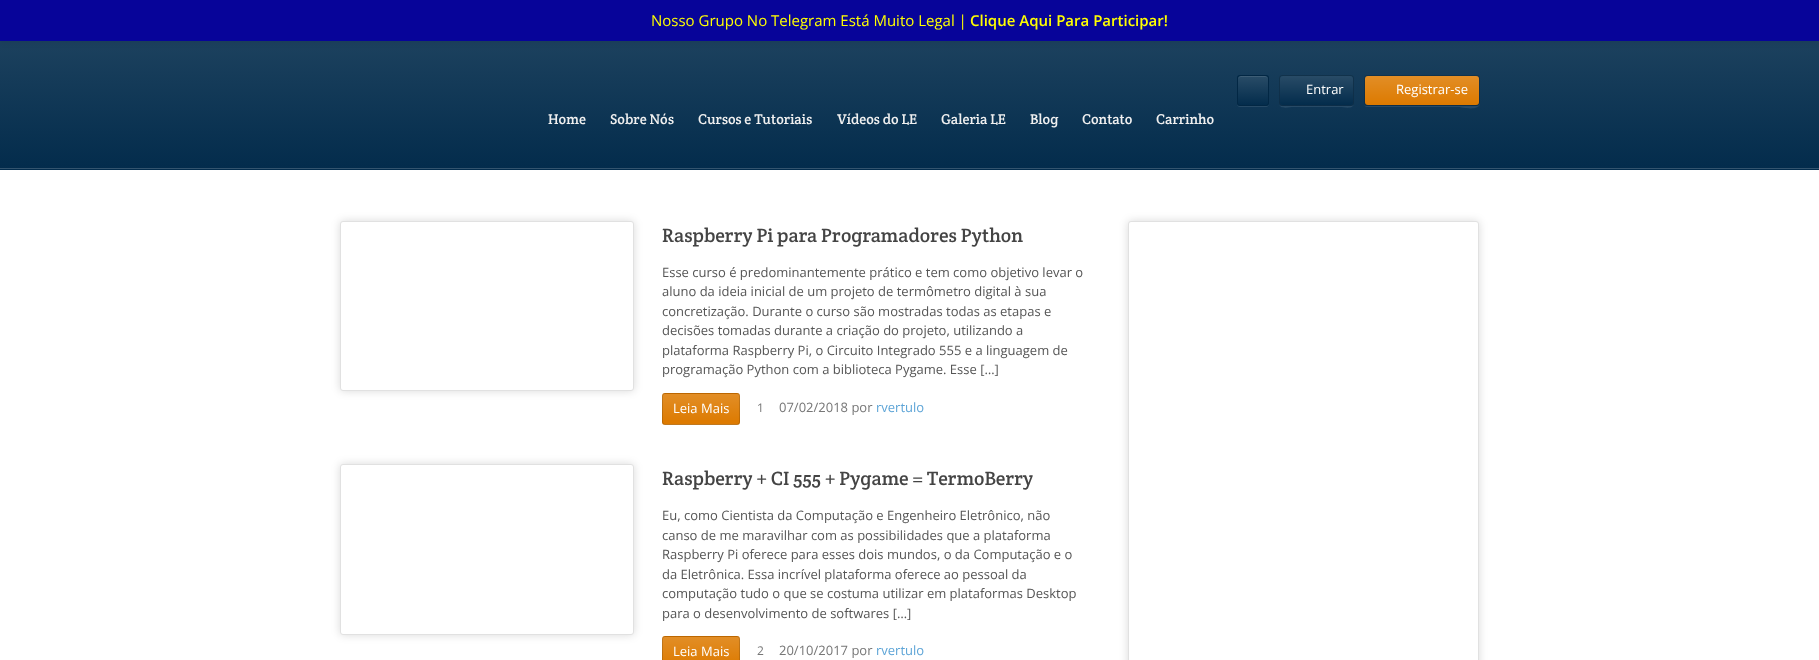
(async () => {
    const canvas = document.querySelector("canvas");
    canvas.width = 1819;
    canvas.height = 660;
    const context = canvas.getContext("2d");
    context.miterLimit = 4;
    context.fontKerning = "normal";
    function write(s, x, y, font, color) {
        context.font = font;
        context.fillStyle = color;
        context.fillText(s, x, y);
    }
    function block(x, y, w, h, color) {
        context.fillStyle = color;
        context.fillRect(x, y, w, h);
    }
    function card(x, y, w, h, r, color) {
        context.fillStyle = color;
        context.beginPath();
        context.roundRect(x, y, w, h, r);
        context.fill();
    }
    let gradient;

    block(0, 0, 1819, 660, "rgb(255, 255, 255)");
    gradient = context.createLinearGradient(910, 42, 910, 168);
    gradient.addColorStop(0, "rgb(28, 65, 94)");
    gradient.addColorStop(1, "rgb(3, 44, 76)");
    context.fillStyle = gradient;
    context.fillRect(0, 42, 1819, 126);
    block(0, 41, 1819, 1, "rgb(28, 65, 94)");
    context.fillStyle = "rgba(0, 0, 0, 0.05)";
    context.filter = "blur(2px)";
    context.beginPath();
    context.rect(0, 3, 1819, 41);
    context.fill();
    context.filter = "none";
    block(0, 0, 1819, 41, "rgb(7, 4, 153)");
    write("Nosso Grupo No Telegram Está Muito Legal |", 651, 26, "15px Open Sans", "rgb(255, 255, 0)");
    write("Clique Aqui Para Participar!", 970, 26, "600 15px Open Sans", "rgb(255, 255, 0)");
    block(0, 168, 1819, 1, "rgb(51, 84, 110)");
    context.fillStyle = "rgb(39, 74, 102)";
    context.beginPath();
    context.moveTo(1237, 103);
    context.bezierCurveTo(1237, 108, 1240.5, 107, 1244.5, 107);
    context.lineTo(1261.5, 107);
    context.bezierCurveTo(1265.5, 107, 1269, 108, 1269, 103);
    context.bezierCurveTo(1269, 104.5, 1267.5, 106, 1266, 106);
    context.lineTo(1240, 106);
    context.bezierCurveTo(1238.5, 106, 1237, 104.5, 1237, 103);
    context.closePath();
    context.fill();
    card(1237, 75, 32, 31, 3, "rgb(3, 44, 76)");
    context.beginPath();
    context.roundRect(1237.5, 75.5, 31, 30, 2.5);
    context.strokeStyle = "rgba(0, 0, 0, 0.1)";
    context.stroke();
    gradient = context.createLinearGradient(1253, 76, 1253, 105);
    gradient.addColorStop(0, "rgb(41, 76, 103)");
    gradient.addColorStop(1, "rgb(3, 44, 76)");
    context.fillStyle = gradient;
    context.beginPath();
    context.roundRect(1238, 76, 30, 29, 3);
    context.fill();
    context.fillStyle = "rgba(255, 255, 255, 0.1)";
    context.beginPath();
    context.moveTo(1241, 77);
    context.lineTo(1265, 77);
    context.bezierCurveTo(1267, 77, 1268, 78, 1268, 80);
    context.bezierCurveTo(1268, 75.5, 1265, 76, 1261, 76);
    context.lineTo(1245, 76);
    context.bezierCurveTo(1241, 76, 1238, 75.5, 1238, 80);
    context.bezierCurveTo(1238, 78, 1239, 77, 1241, 77);
    context.closePath();
    context.fill();
    context.fillStyle = "rgb(39, 74, 102)";
    context.beginPath();
    context.moveTo(1279, 103);
    context.bezierCurveTo(1279, 110, 1289, 107, 1294, 107);
    context.lineTo(1340, 107);
    context.bezierCurveTo(1344, 107, 1354, 110, 1354, 103);
    context.bezierCurveTo(1354, 105, 1353, 106, 1351, 106);
    context.lineTo(1282, 106);
    context.bezierCurveTo(1280, 106, 1279, 105, 1279, 103);
    context.closePath();
    context.fill();
    context.beginPath();
    context.roundRect(1279.5, 75.5, 74, 30, 2.5);
    context.strokeStyle = "rgba(0, 0, 0, 0.15)";
    context.stroke();
    card(1280, 76, 73, 29, 3, "rgb(3, 44, 76)");
    gradient = context.createLinearGradient(1317, 76, 1317, 105);
    gradient.addColorStop(0, "rgba(255, 255, 255, 0.15)");
    gradient.addColorStop(1, "rgba(255, 255, 255, 0)");
    context.fillStyle = gradient;
    context.beginPath();
    context.roundRect(1280, 76, 73, 29, 3);
    context.fill();
    write("Entrar", 1306, 94, "13px Open Sans", "rgb(255, 255, 255)");
    context.fillStyle = "rgb(39, 74, 102)";
    context.beginPath();
    context.moveTo(1364, 103);
    context.bezierCurveTo(1364, 105, 1365, 107, 1367, 107);
    context.lineTo(1459, 107);
    context.bezierCurveTo(1460, 107, 1480, 112, 1480, 103);
    context.lineTo(1479, 105);
    context.lineTo(1477, 106);
    context.lineTo(1367, 106);
    context.bezierCurveTo(1365, 106, 1364, 105, 1364, 103);
    context.closePath();
    context.fill();
    context.beginPath();
    context.roundRect(1364.5, 75.5, 115, 30, 2.5);
    context.stroke();
    card(1365, 76, 114, 29, 3, "rgb(221, 122, 0)");
    gradient = context.createLinearGradient(1422, 76, 1422, 105);
    gradient.addColorStop(0, "rgba(255, 255, 255, 0.15)");
    gradient.addColorStop(1, "rgba(255, 255, 255, 0)");
    context.fillStyle = gradient;
    context.beginPath();
    context.roundRect(1365, 76, 114, 29, 3);
    context.fill();
    write("Registrar-se", 1396, 94, "13px Open Sans", "rgb(255, 255, 255)");
    write("Home", 548, 124, "14.25px Crete Round", "rgb(240, 240, 240)");
    write("Sobre Nós", 610, 124, "14.25px Crete Round", "rgb(240, 240, 240)");
    write("Cursos e Tutoriais", 698, 124, "14.25px Crete Round", "rgb(240, 240, 240)");
    write("Vídeos do LE", 837, 124, "14.25px Crete Round", "rgb(240, 240, 240)");
    write("Galeria LE", 941, 124, "14.25px Crete Round", "rgb(240, 240, 240)");
    write("Blog", 1030, 124, "14.25px Crete Round", "rgb(240, 240, 240)");
    write("Contato", 1082, 124, "14.25px Crete Round", "rgb(240, 240, 240)");
    write("Carrinho", 1156, 124, "14.25px Crete Round", "rgb(240, 240, 240)");
    block(0, 169, 1819, 1, "rgb(3, 44, 76)");
    context.fillStyle = "rgba(0, 0, 0, 0.15)";
    context.filter = "blur(4px)";
    context.beginPath();
    context.roundRect(340, 221, 294, 170, 3);
    context.fill();
    context.filter = "none";
    context.fillStyle = "rgb(255, 255, 255)";
    context.beginPath();
    context.roundRect(340.5, 221.5, 293, 169, 2.5);
    context.fill();
    context.strokeStyle = "rgb(225, 225, 225)";
    context.stroke();
    write("Raspberry Pi para Programadores Python", 662, 242, "19.5px Crete Round", "rgb(68, 68, 68)");
    write("Esse curso é predominantemente prático e tem como objetivo levar o", 662, 277, "13px Open Sans", "rgb(85, 85, 85)");
    write("aluno da ideia inicial de um projeto de termômetro digital à sua", 662, 296, "13px Open Sans", "rgb(85, 85, 85)");
    write("concretização. Durante o curso são mostradas todas as etapas e", 662, 316, "13px Open Sans", "rgb(85, 85, 85)");
    write("decisões tomadas durante a criação do projeto, utilizando a", 662, 335, "13px Open Sans", "rgb(85, 85, 85)");
    write("plataforma Raspberry Pi, o Circuito Integrado 555 e a linguagem de", 662, 355, "13px Open Sans", "rgb(85, 85, 85)");
    write("programação Python com a biblioteca Pygame. Esse […]", 662, 374, "13px Open Sans", "rgb(85, 85, 85)");
    card(662, 393, 78, 32, 3, "rgb(221, 122, 0)");
    gradient = context.createLinearGradient(701, 394, 701, 424);
    gradient.addColorStop(0, "rgba(255, 255, 255, 0.15)");
    gradient.addColorStop(1, "rgba(255, 255, 255, 0)");
    context.fillStyle = gradient;
    context.fillRect(662, 394, 78, 26);
    context.save();
    context.beginPath();
    context.roundRect(662, 393, 78, 32, 3);
    context.clip();
    gradient = context.createLinearGradient(701, 424, 701, 454);
    gradient.addColorStop(0, "rgba(255, 255, 255, 0.15)");
    gradient.addColorStop(1, "rgba(255, 255, 255, 0)");
    context.fillStyle = gradient;
    context.fillRect(662, 424, 78, 1);
    context.restore();
    context.beginPath();
    context.roundRect(662.5, 393.5, 77, 31, 2.5);
    context.strokeStyle = "rgba(0, 0, 0, 0.15)";
    context.stroke();
    write("Leia Mais", 673, 413, "13px Open Sans", "rgb(255, 255, 255)");
    write("1", 757, 412, "12px Open Sans", "rgb(119, 119, 119)");
    write("07/02/2018 por", 779, 412, "13px Open Sans", "rgb(119, 119, 119)");
    write("rvertulo", 876, 412, "13px Open Sans", "rgb(94, 165, 215)");
    context.fillStyle = "rgba(0, 0, 0, 0.15)";
    context.filter = "blur(4px)";
    context.beginPath();
    context.roundRect(340, 464, 294, 171, 3);
    context.fill();
    context.filter = "none";
    context.fillStyle = "rgb(255, 255, 255)";
    context.beginPath();
    context.roundRect(340.5, 464.5, 293, 170, 2.5);
    context.fill();
    context.strokeStyle = "rgb(225, 225, 225)";
    context.stroke();
    write("Raspberry + CI 555 + Pygame = TermoBerry", 662, 485, "19.5px Crete Round", "rgb(68, 68, 68)");
    write("Eu, como Cientista da Computação e Engenheiro Eletrônico, não", 662, 520, "13px Open Sans", "rgb(85, 85, 85)");
    write("canso de me maravilhar com as possibilidades que a plataforma", 662, 540, "13px Open Sans", "rgb(85, 85, 85)");
    write("Raspberry Pi oferece para esses dois mundos, o da Computação e o", 662, 559, "13px Open Sans", "rgb(85, 85, 85)");
    write("da Eletrônica. Essa incrível plataforma oferece ao pessoal da", 662, 579, "13px Open Sans", "rgb(85, 85, 85)");
    write("computação tudo o que se costuma utilizar em plataformas Desktop", 662, 598, "13px Open Sans", "rgb(85, 85, 85)");
    write("para o desenvolvimento de softwares […]", 662, 618, "13px Open Sans", "rgb(85, 85, 85)");
    card(662, 636, 78, 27, 3, "rgb(221, 122, 0)");
    gradient = context.createLinearGradient(701, 637, 701, 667);
    gradient.addColorStop(0, "rgba(255, 255, 255, 0.15)");
    gradient.addColorStop(1, "rgba(255, 255, 255, 0)");
    context.fillStyle = gradient;
    context.fillRect(662, 637, 78, 23);
    context.beginPath();
    context.roundRect(662.5, 636.5, 77, 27, 2.5);
    context.strokeStyle = "rgba(0, 0, 0, 0.15)";
    context.stroke();
    write("Leia Mais", 673, 656, "13px Open Sans", "rgb(255, 255, 255)");
    write("2", 757, 655, "12px Open Sans", "rgb(119, 119, 119)");
    write("20/10/2017 por", 779, 655, "13px Open Sans", "rgb(119, 119, 119)");
    write("rvertulo", 876, 655, "13px Open Sans", "rgb(94, 165, 215)");
    context.fillStyle = "rgba(0, 0, 0, 0.15)";
    context.filter = "blur(4px)";
    context.beginPath();
    context.roundRect(1128, 221, 351, 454, 3);
    context.fill();
    context.filter = "none";
    context.fillStyle = "rgb(255, 255, 255)";
    context.beginPath();
    context.roundRect(1128.5, 221.5, 350, 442, 2.5);
    context.fill();
    context.strokeStyle = "rgb(225, 225, 225)";
    context.stroke();
})();
